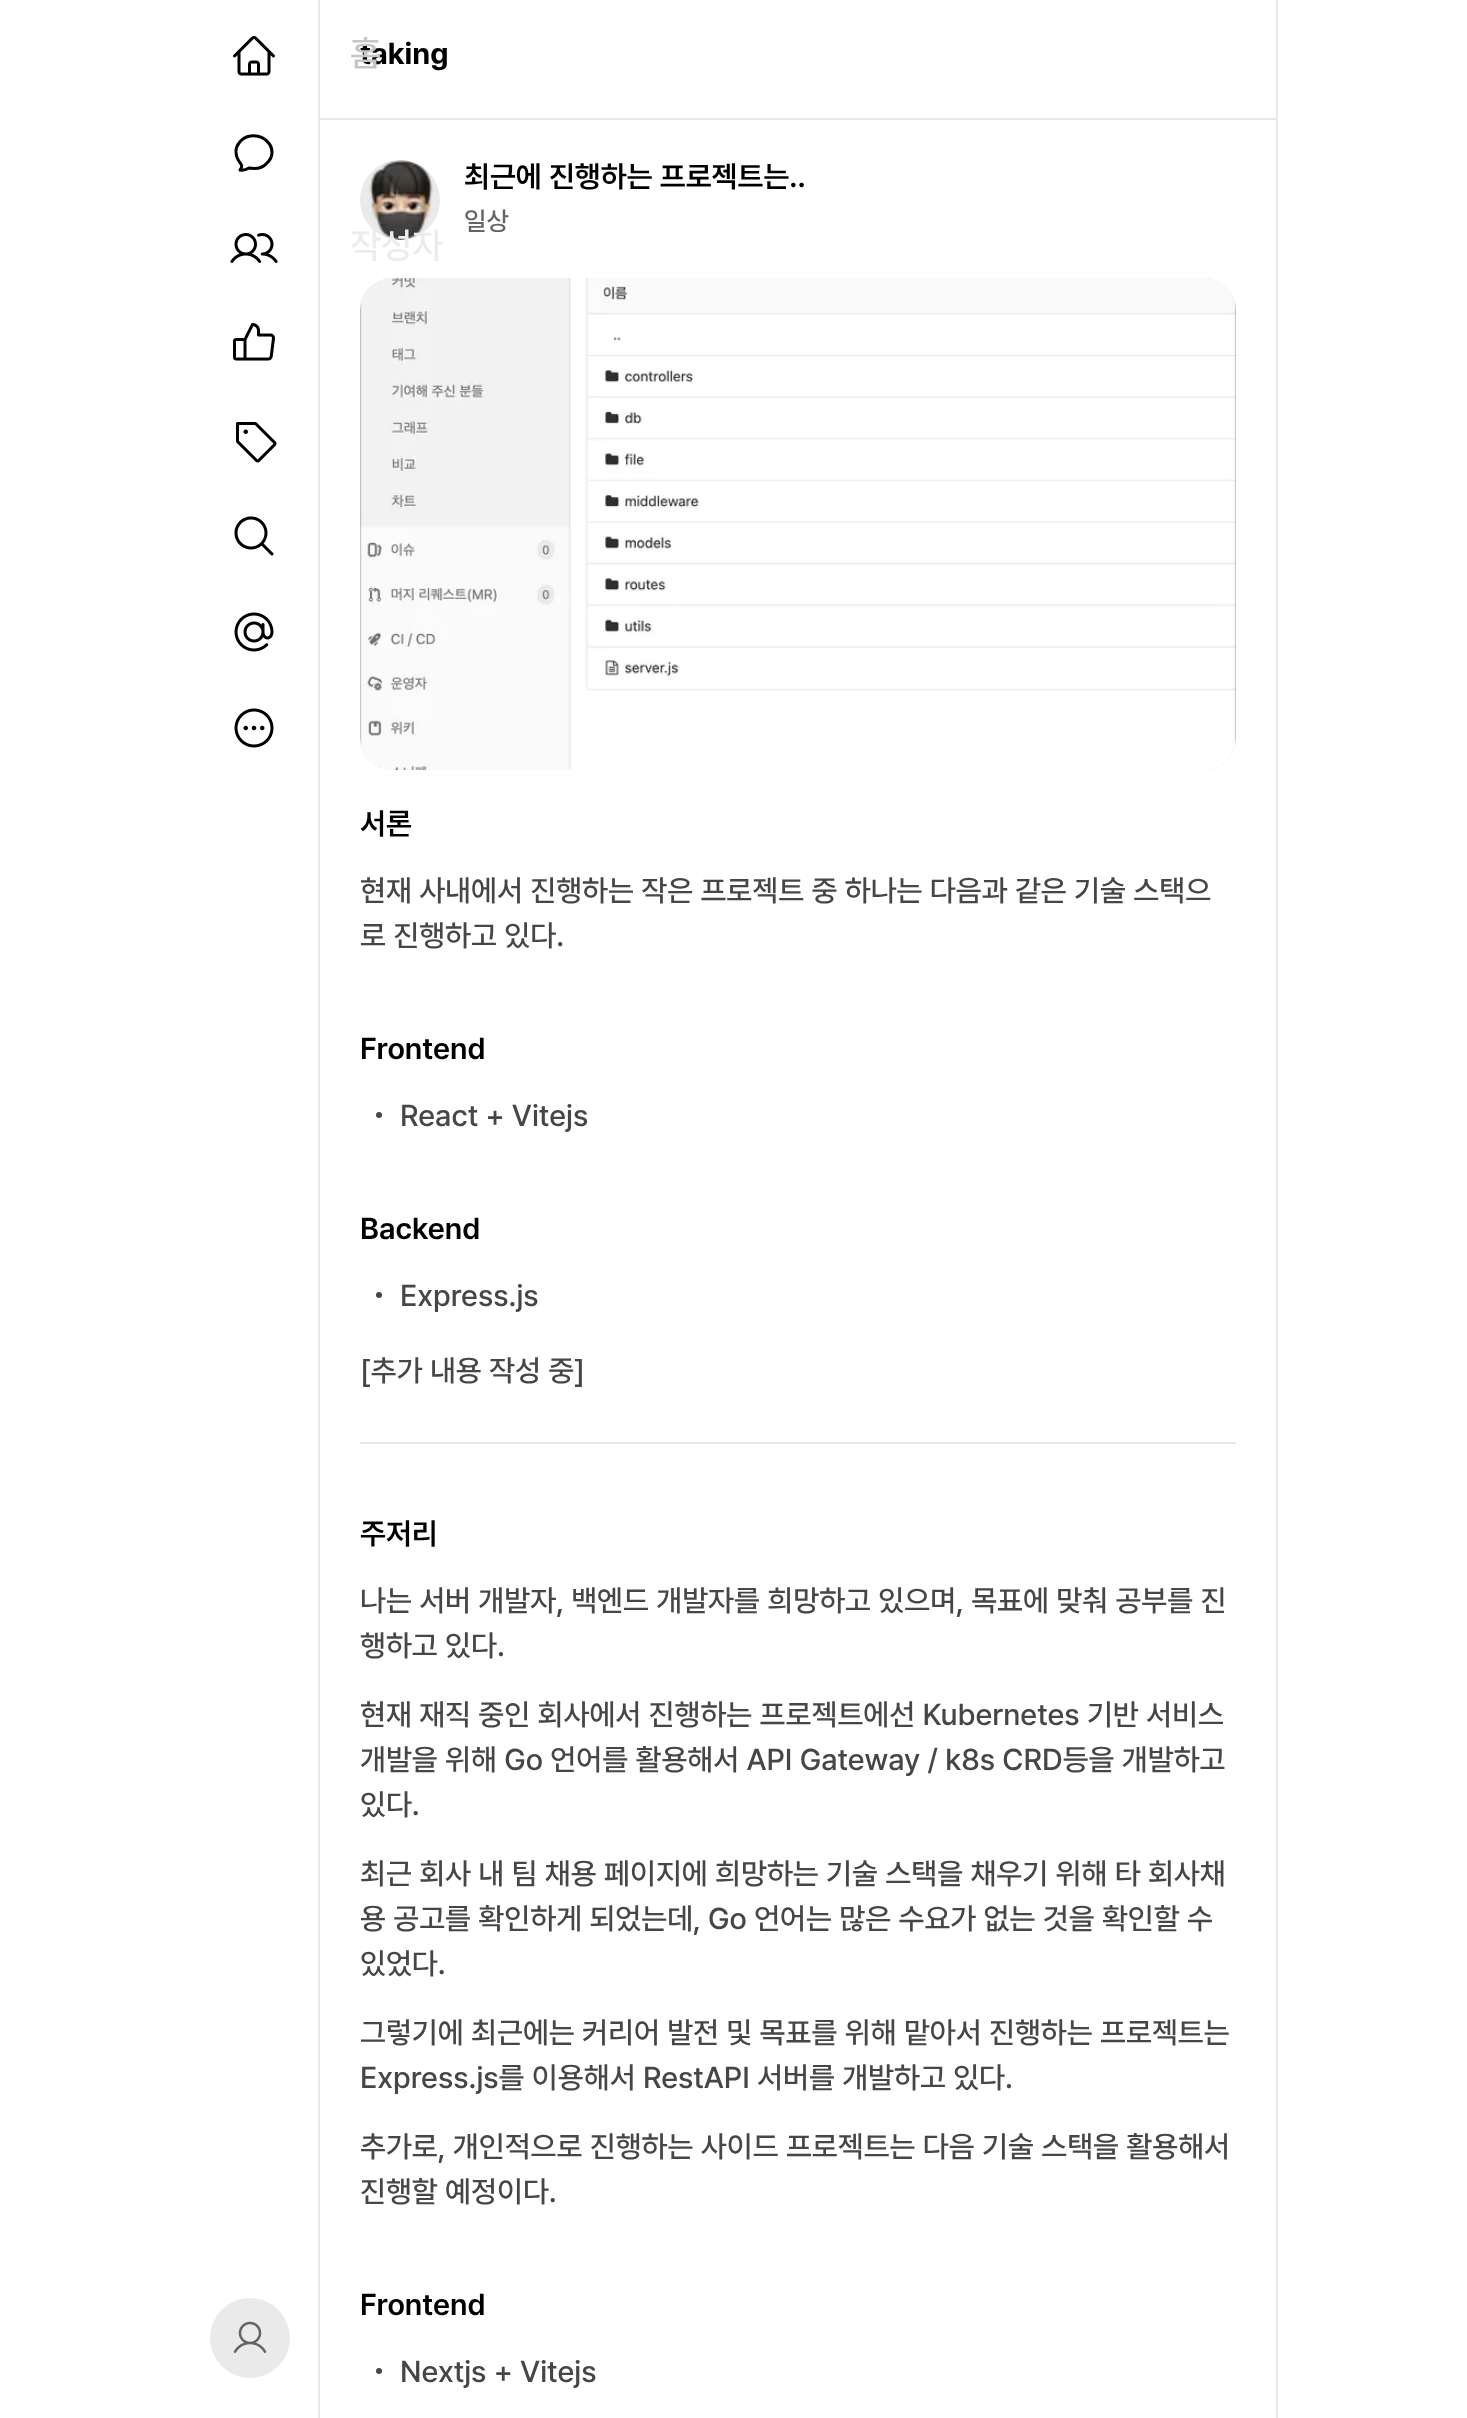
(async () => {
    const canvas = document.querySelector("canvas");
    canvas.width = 1467;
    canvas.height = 2418;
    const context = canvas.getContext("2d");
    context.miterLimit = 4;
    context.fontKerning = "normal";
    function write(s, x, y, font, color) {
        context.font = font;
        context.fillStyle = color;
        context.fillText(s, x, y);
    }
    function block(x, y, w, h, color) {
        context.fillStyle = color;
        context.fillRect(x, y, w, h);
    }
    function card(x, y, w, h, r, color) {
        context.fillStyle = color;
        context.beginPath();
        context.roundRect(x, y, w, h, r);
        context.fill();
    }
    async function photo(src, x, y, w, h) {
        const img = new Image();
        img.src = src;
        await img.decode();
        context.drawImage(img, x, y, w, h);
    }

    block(0, 0, 1467, 2418, "rgb(255, 255, 255)");
    await photo("media/1.png", 233, 36, 42, 40);
    write("taking", 360, 64, "bold 30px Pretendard", "rgb(0, 0, 0)");
    write("홈", 350, 66, "500 36px Pretendard", "rgb(198, 198, 198)");
    context.beginPath();
    context.moveTo(254, 168.5);
    context.bezierCurveTo(258.5, 168.5, 263.5, 167, 266.5, 163.5);
    context.bezierCurveTo(280, 151.5, 266.5, 133, 250.5, 136);
    context.bezierCurveTo(246, 136.5, 242, 139, 239, 143);
    context.bezierCurveTo(235, 148, 235, 155, 238.5, 160.5);
    context.bezierCurveTo(241, 164.5, 243.5, 165.5, 240, 170);
    context.bezierCurveTo(243, 170.5, 246.5, 169.5, 249, 168);
    context.closePath();
    context.strokeStyle = "rgb(0, 0, 0)";
    context.lineWidth = 3;
    context.lineCap = "round";
    context.lineJoin = "round";
    context.stroke();
    await photo("media/2.png", 230, 233, 48, 30);
    context.fillStyle = "rgb(234, 234, 234)";
    context.beginPath();
    context.arc(400, 200, 40, 0, Math.PI * 2);
    context.fill();
    await photo("media/9.png", 369, 160, 64, 80);
    write("작성자", 350, 258, "500 36px Pretendard", "rgb(236, 236, 236)");
    await photo("media/3.png", 233, 323, 42, 38);
    await photo("media/4.png", 236, 422, 41, 41);
    await photo("media/5.png", 234, 516, 40, 40);
    await photo("media/6.png", 234, 612, 40, 40);
    await photo("media/7.png", 234, 708, 40, 40);
    context.fillStyle = "rgb(234, 234, 234)";
    context.beginPath();
    context.arc(250, 2338, 40, 0, Math.PI * 2);
    context.fill();
    await photo("media/8.png", 233, 2321, 34, 32);
    block(1276, 0, 2, 2418, "rgb(232, 232, 232)");
    block(318, 0, 2, 2418, "rgb(232, 232, 232)");
    block(320, 118, 956, 2, "rgb(232, 232, 232)");
    write("최근에 진행하는 프로젝트는..", 464, 187, "600 30px Pretendard", "rgb(0, 0, 0)");
    write("일상", 464, 230, "500 26px Pretendard", "rgb(100, 100, 100)");
    card(360, 278, 876, 492, 32, "rgb(234, 234, 234)");
    await photo("media/10.png", 360, 278, 876, 492);
    write("서론", 360, 834, "600 30px Pretendard", "rgb(0, 0, 0)");
    write("현재 사내에서 진행하는 작은 프로젝트 중 하나는 다음과 같은 기술 스택으", 360, 901, "500 30px Pretendard", "rgb(70, 70, 70)");
    write("로 진행하고 있다.", 360, 946, "500 30px Pretendard", "rgb(70, 70, 70)");
    write("Frontend", 360, 1059, "600 30px Pretendard", "rgb(0, 0, 0)");
    context.fillStyle = "rgb(70, 70, 70)";
    context.beginPath();
    context.arc(379, 1115, 3, 0, Math.PI * 2);
    context.fill();
    write("React + Vitejs", 400, 1126, "500 30px Pretendard", "rgb(70, 70, 70)");
    write("Backend", 360, 1239, "600 30px Pretendard", "rgb(0, 0, 0)");
    context.fillStyle = "rgb(70, 70, 70)";
    context.beginPath();
    context.arc(379, 1295, 3, 0, Math.PI * 2);
    context.fill();
    write("Express.js", 400, 1306, "500 30px Pretendard", "rgb(70, 70, 70)");
    write("[추가 내용 작성 중]", 360, 1381, "500 30px Pretendard", "rgb(70, 70, 70)");
    block(360, 1442, 876, 2, "rgb(232, 232, 232)");
    write("주저리", 360, 1544, "600 30px Pretendard", "rgb(0, 0, 0)");
    write("나는 서버 개발자, 백엔드 개발자를 희망하고 있으며, 목표에 맞춰 공부를 진", 360, 1611, "500 30px Pretendard", "rgb(70, 70, 70)");
    write("행하고 있다.", 360, 1656, "500 30px Pretendard", "rgb(70, 70, 70)");
    write("현재 재직 중인 회사에서 진행하는 프로젝트에선 Kubernetes 기반 서비스", 360, 1725, "500 30px Pretendard", "rgb(70, 70, 70)");
    write("개발을 위해 Go 언어를 활용해서 API Gateway / k8s CRD등을 개발하고", 360, 1770, "500 30px Pretendard", "rgb(70, 70, 70)");
    write("있다.", 360, 1815, "500 30px Pretendard", "rgb(70, 70, 70)");
    write("최근 회사 내 팀 채용 페이지에 희망하는 기술 스택을 채우기 위해 타 회사채", 360, 1884, "500 30px Pretendard", "rgb(70, 70, 70)");
    write("용 공고를 확인하게 되었는데, Go 언어는 많은 수요가 없는 것을 확인할 수", 360, 1929, "500 30px Pretendard", "rgb(70, 70, 70)");
    write("있었다.", 360, 1974, "500 30px Pretendard", "rgb(70, 70, 70)");
    write("그렇기에 최근에는 커리어 발전 및 목표를 위해 맡아서 진행하는 프로젝트는", 360, 2043, "500 30px Pretendard", "rgb(70, 70, 70)");
    write("Express.js를 이용해서 RestAPI 서버를 개발하고 있다.", 360, 2088, "500 30px Pretendard", "rgb(70, 70, 70)");
    write("추가로, 개인적으로 진행하는 사이드 프로젝트는 다음 기술 스택을 활용해서", 360, 2157, "500 30px Pretendard", "rgb(70, 70, 70)");
    write("진행할 예정이다.", 360, 2202, "500 30px Pretendard", "rgb(70, 70, 70)");
    write("Frontend", 360, 2315, "600 30px Pretendard", "rgb(0, 0, 0)");
    context.fillStyle = "rgb(70, 70, 70)";
    context.beginPath();
    context.arc(379, 2371, 3, 0, Math.PI * 2);
    context.fill();
    write("Nextjs + Vitejs", 400, 2382, "500 30px Pretendard", "rgb(70, 70, 70)");
})();
